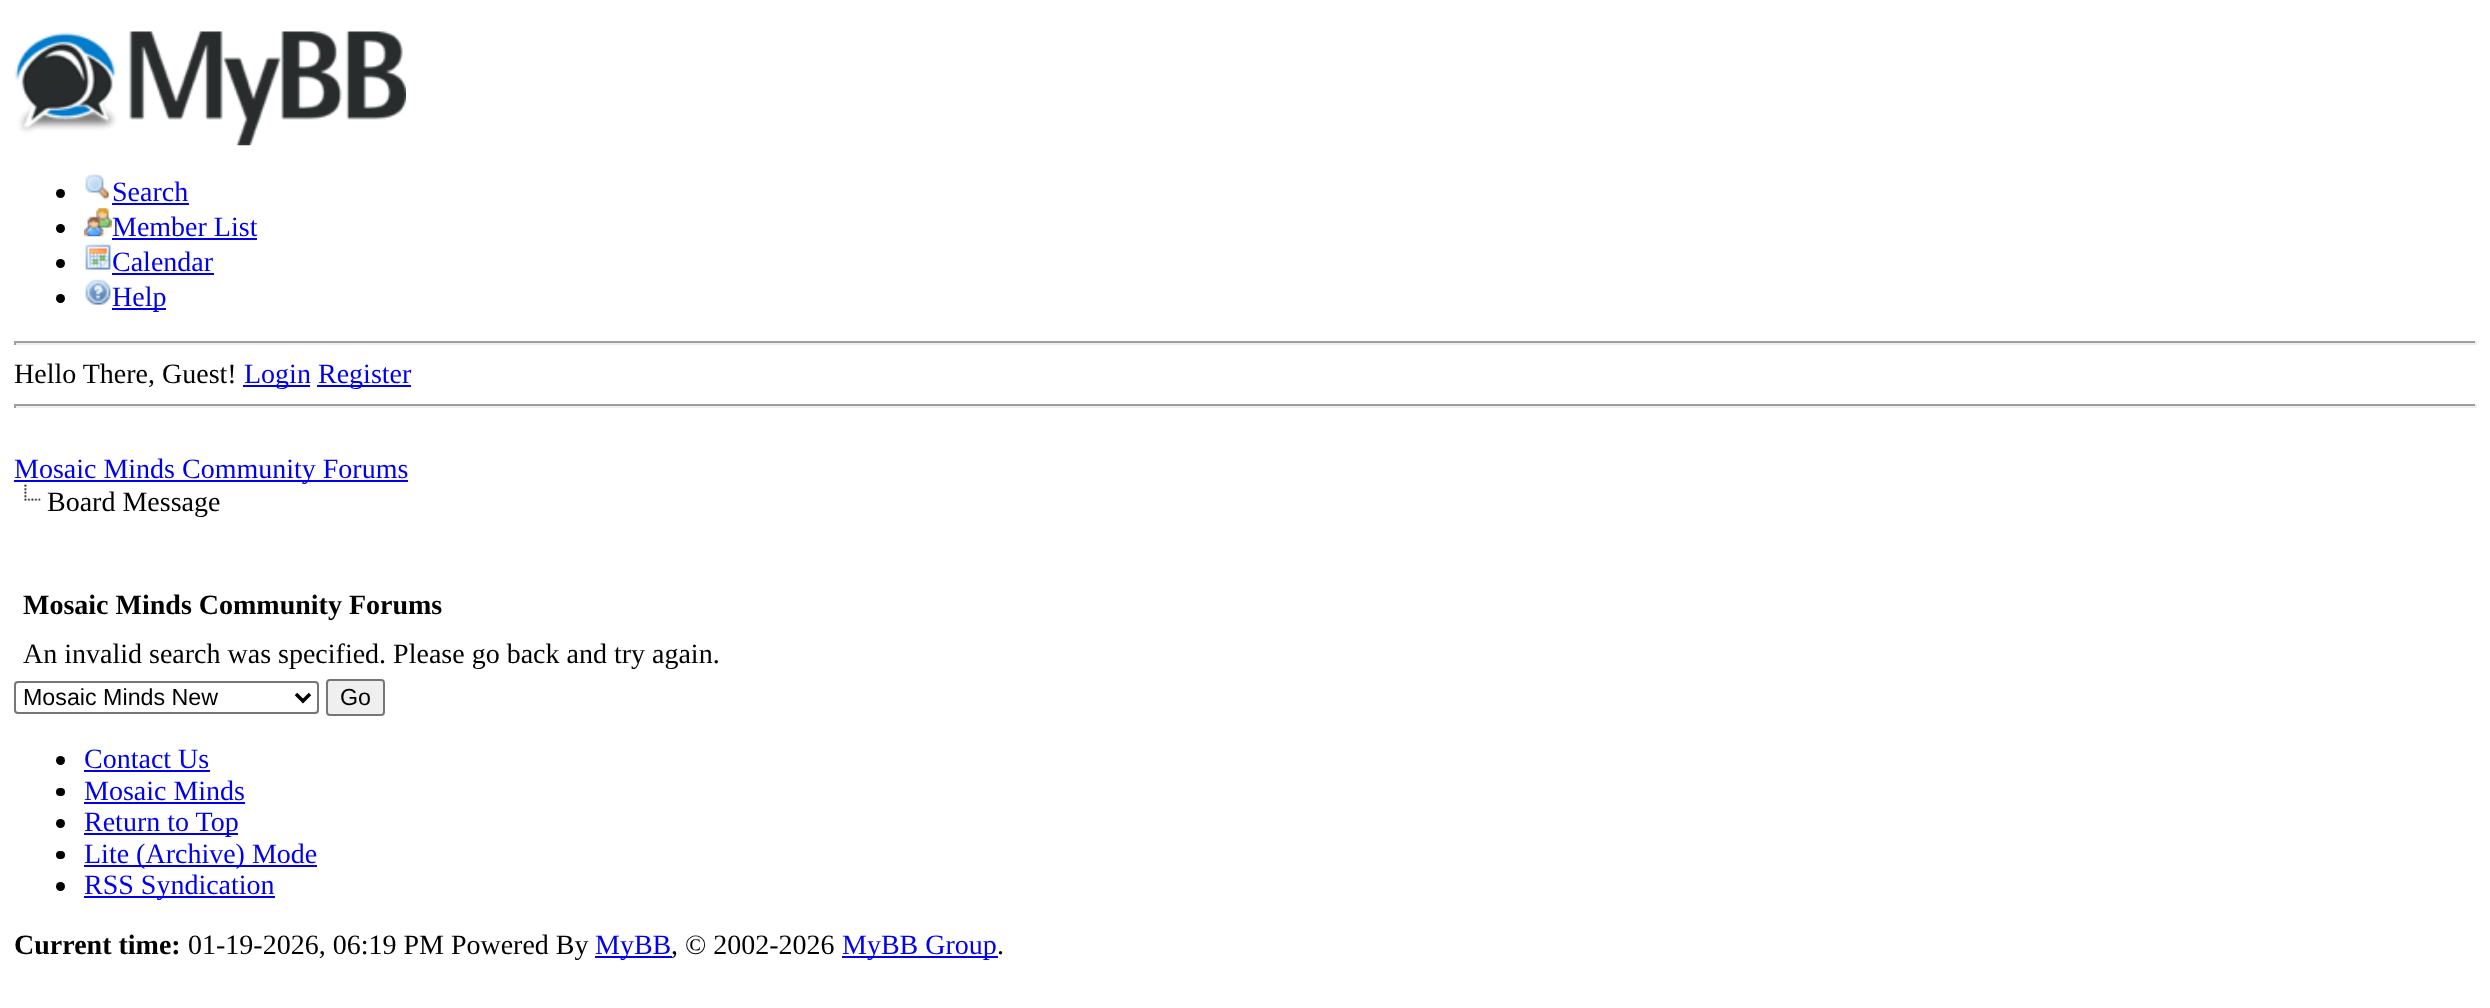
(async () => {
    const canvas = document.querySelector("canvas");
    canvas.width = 2490;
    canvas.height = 1008;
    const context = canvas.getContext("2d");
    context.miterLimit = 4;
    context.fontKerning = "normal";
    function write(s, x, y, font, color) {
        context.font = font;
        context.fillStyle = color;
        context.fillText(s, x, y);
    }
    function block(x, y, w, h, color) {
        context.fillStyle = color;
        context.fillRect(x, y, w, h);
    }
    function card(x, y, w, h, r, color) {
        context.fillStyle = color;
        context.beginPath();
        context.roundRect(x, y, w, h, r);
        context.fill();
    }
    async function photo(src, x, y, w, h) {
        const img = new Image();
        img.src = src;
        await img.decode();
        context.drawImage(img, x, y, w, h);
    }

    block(0, 0, 2490, 1008, "rgb(255, 255, 255)");
    await photo("media/1.png", 14, 31, 392, 115);
    context.fillStyle = "rgb(0, 0, 0)";
    context.beginPath();
    context.arc(60.5, 193.5, 4.5, 0, Math.PI * 2);
    context.fill();
    await photo("media/2.png", 85, 174, 24, 26);
    write("Search", 112, 201, "28px Liberation Serif", "rgb(0, 0, 238)");
    block(112, 203, 77, 2, "rgb(0, 0, 238)");
    context.fillStyle = "rgb(0, 0, 0)";
    context.beginPath();
    context.arc(60.5, 228.5, 4.5, 0, Math.PI * 2);
    context.fill();
    await photo("media/3.png", 84, 208, 28, 29);
    write("Member List", 112, 236, "28px Liberation Serif", "rgb(0, 0, 238)");
    block(112, 238, 145, 2, "rgb(0, 0, 238)");
    context.fillStyle = "rgb(0, 0, 0)";
    context.beginPath();
    context.arc(60.5, 263.5, 4.5, 0, Math.PI * 2);
    context.fill();
    await photo("media/4.png", 85, 244, 26, 26);
    write("Calendar", 112, 271, "28px Liberation Serif", "rgb(0, 0, 238)");
    block(112, 273, 102, 2, "rgb(0, 0, 238)");
    context.fillStyle = "rgb(0, 0, 0)";
    context.beginPath();
    context.arc(60.5, 298.5, 4.5, 0, Math.PI * 2);
    context.fill();
    await photo("media/5.png", 85, 279, 26, 26);
    block(112, 308, 54, 2, "rgb(0, 0, 238)");
    write("Help", 112, 306, "28px Liberation Serif", "rgb(0, 0, 238)");
    block(14, 341, 2462, 2, "rgb(159, 159, 159)");
    block(2475, 341, 2, 4, "rgb(238, 238, 238)");
    block(14, 343, 2462, 2, "rgb(238, 238, 238)");
    block(14, 341, 2, 4, "rgb(159, 159, 159)");
    write("Hello There, Guest!", 14, 383, "28px Liberation Serif", "rgb(0, 0, 0)");
    block(243, 385, 67, 2, "rgb(0, 0, 238)");
    write("Login", 244, 383, "28px Liberation Serif", "rgb(0, 0, 238)");
    block(317, 385, 94, 2, "rgb(0, 0, 238)");
    write("Register", 318, 383, "28px Liberation Serif", "rgb(0, 0, 238)");
    block(14, 404, 2462, 2, "rgb(159, 159, 159)");
    block(2475, 404, 2, 4, "rgb(238, 238, 238)");
    block(14, 406, 2462, 2, "rgb(238, 238, 238)");
    block(14, 404, 2, 4, "rgb(159, 159, 159)");
    block(14, 480, 394, 2, "rgb(0, 0, 238)");
    write("Mosaic Minds Community Forums", 14, 478, "28px Liberation Serif", "rgb(0, 0, 238)");
    await photo("media/6.png", 24, 484, 17, 17);
    write("Board Message", 47, 511, "28px Liberation Serif", "rgb(0, 0, 0)");
    write("Mosaic Minds Community Forums", 23, 614, "bold 28px Liberation Serif", "rgb(0, 0, 0)");
    write("An invalid search was specified. Please go back and try again.", 23, 663, "28px Liberation Serif", "rgb(0, 0, 0)");
    context.beginPath();
    context.roundRect(15, 682, 303, 31, 3);
    context.strokeStyle = "rgb(118, 118, 118)";
    context.lineWidth = 2;
    context.stroke();
    context.beginPath();
    context.moveTo(296, 694);
    context.lineTo(303, 701);
    context.lineTo(310, 694);
    context.strokeStyle = "rgb(0, 0, 0)";
    context.lineWidth = 3.5;
    context.stroke();
    write("Mosaic Minds New", 23, 705, "23.25px Liberation Sans", "rgb(0, 0, 0)");
    context.fillStyle = "rgb(239, 239, 239)";
    context.beginPath();
    context.roundRect(327, 680, 57, 35, 3);
    context.fill();
    context.strokeStyle = "rgb(118, 118, 118)";
    context.lineWidth = 2;
    context.stroke();
    write("Go", 340, 705, "23.25px Liberation Sans", "rgb(0, 0, 0)");
    context.beginPath();
    context.arc(60.5, 760.5, 4.5, 0, Math.PI * 2);
    context.fill();
    write("Contact Us", 84, 768, "28px Liberation Serif", "rgb(0, 0, 238)");
    block(84, 770, 126, 2, "rgb(0, 0, 238)");
    card(56, 788, 9, 8, 4, "rgb(0, 0, 0)");
    write("Mosaic Minds", 84, 800, "28px Liberation Serif", "rgb(0, 0, 238)");
    block(84, 802, 161, 2, "rgb(0, 0, 238)");
    context.fillStyle = "rgb(0, 0, 0)";
    context.beginPath();
    context.arc(60.5, 823.5, 4.5, 0, Math.PI * 2);
    context.fill();
    block(84, 833, 154, 2, "rgb(0, 0, 238)");
    write("Return to Top", 84, 831, "28px Liberation Serif", "rgb(0, 0, 238)");
    card(56, 851, 9, 8, 4, "rgb(0, 0, 0)");
    block(84, 865, 233, 2, "rgb(0, 0, 238)");
    write("Lite (Archive) Mode", 84, 863, "28px Liberation Serif", "rgb(0, 0, 238)");
    context.fillStyle = "rgb(0, 0, 0)";
    context.beginPath();
    context.arc(60.5, 886.5, 4.5, 0, Math.PI * 2);
    context.fill();
    block(84, 896, 191, 2, "rgb(0, 0, 238)");
    write("RSS Syndication", 84, 894, "28px Liberation Serif", "rgb(0, 0, 238)");
    write("Current time:", 14, 954, "bold 28px Liberation Serif", "rgb(0, 0, 0)");
    write("01-19-2026, 06:19 PM Powered By", 188, 954, "28px Liberation Serif", "rgb(0, 0, 0)");
    block(595, 956, 77, 2, "rgb(0, 0, 238)");
    write("MyBB", 595, 954, "28px Liberation Serif", "rgb(0, 0, 238)");
    write(", © 2002-2026", 671, 954, "28px Liberation Serif", "rgb(0, 0, 0)");
    block(842, 956, 156, 2, "rgb(0, 0, 238)");
    write("MyBB Group", 842, 954, "28px Liberation Serif", "rgb(0, 0, 238)");
    write(".", 997, 954, "28px Liberation Serif", "rgb(0, 0, 0)");
})();
